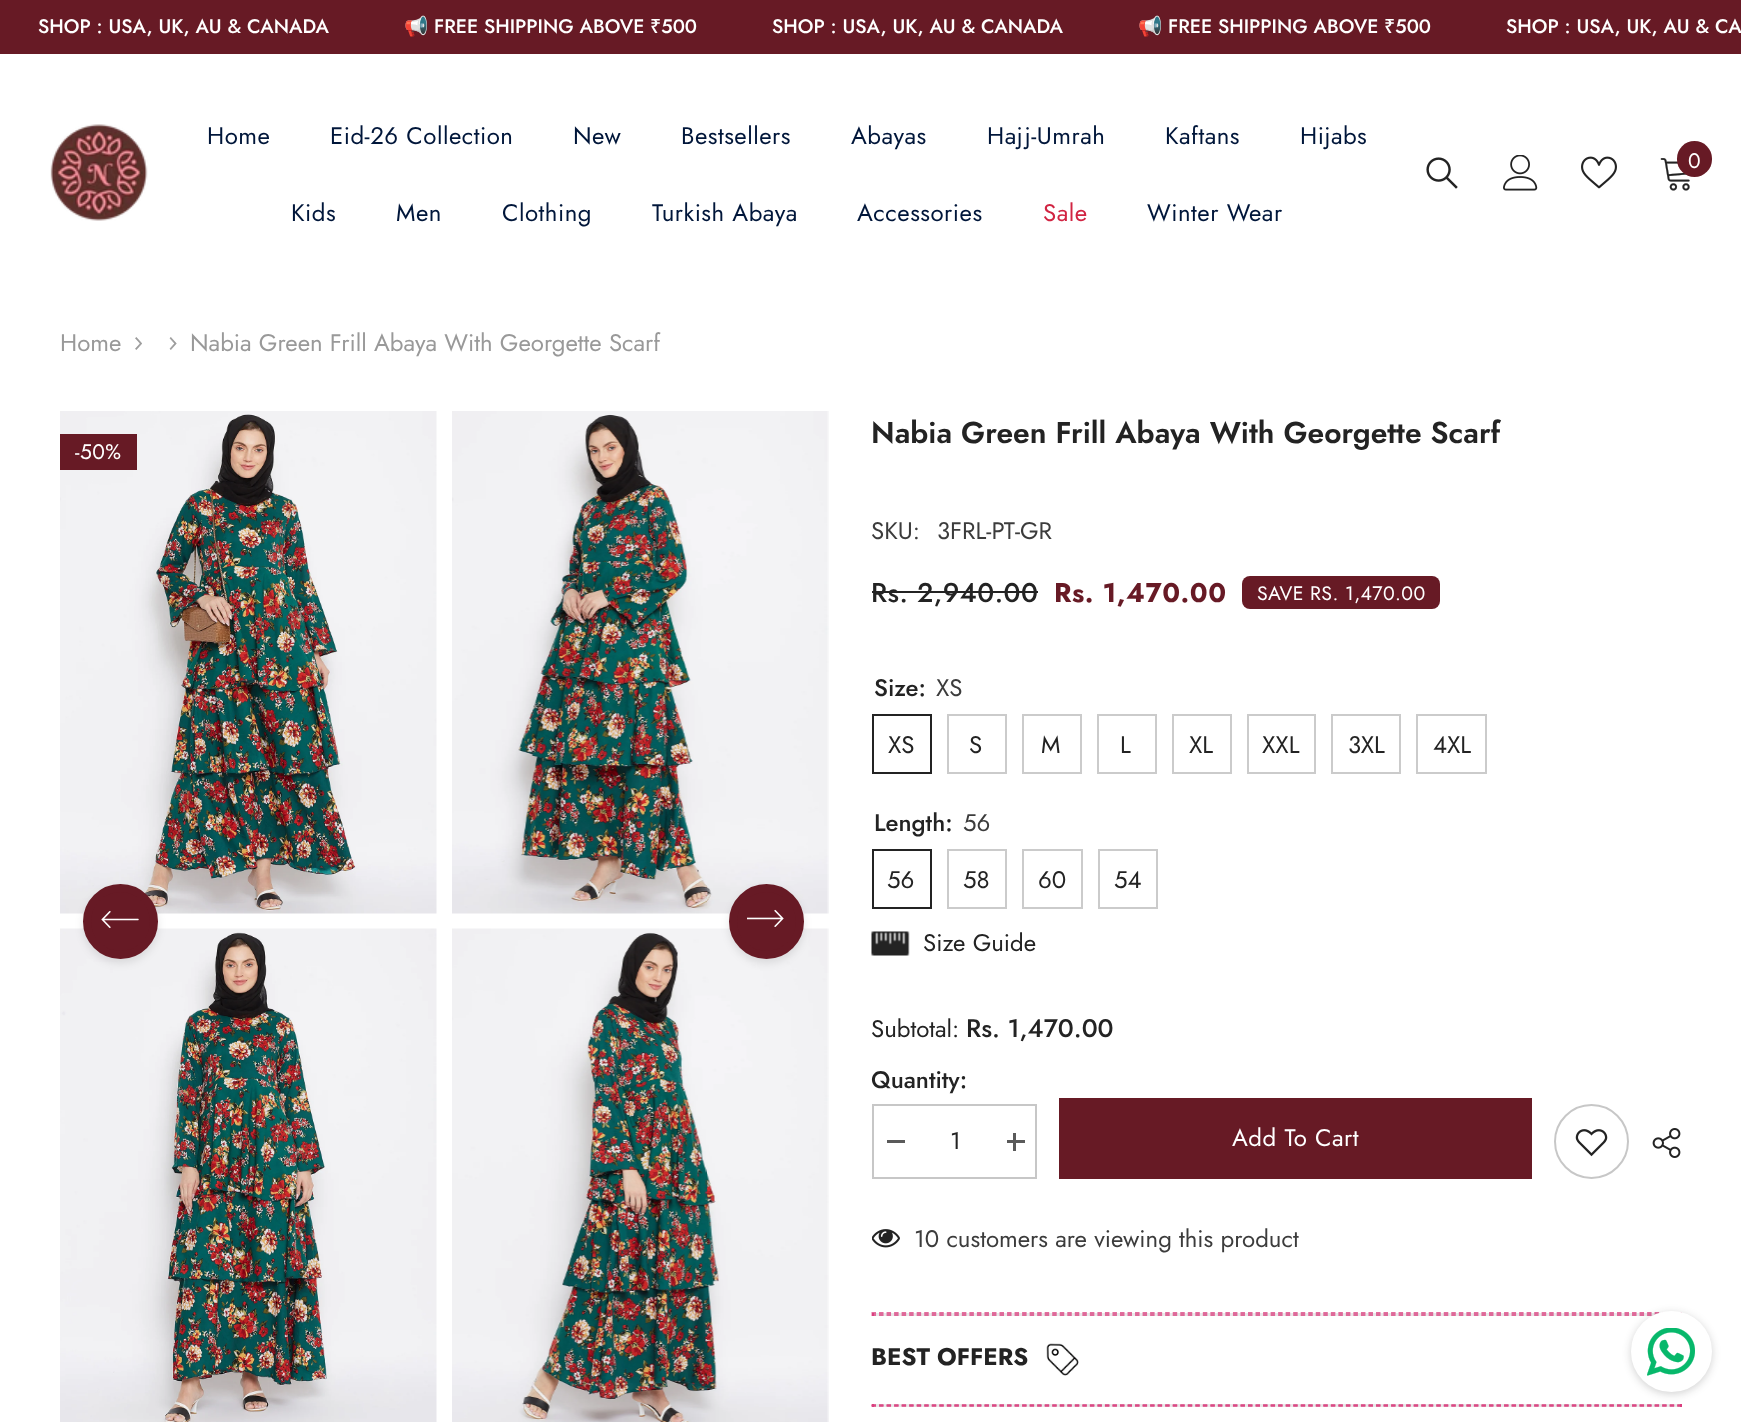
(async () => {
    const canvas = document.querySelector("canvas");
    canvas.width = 1741;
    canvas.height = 1422;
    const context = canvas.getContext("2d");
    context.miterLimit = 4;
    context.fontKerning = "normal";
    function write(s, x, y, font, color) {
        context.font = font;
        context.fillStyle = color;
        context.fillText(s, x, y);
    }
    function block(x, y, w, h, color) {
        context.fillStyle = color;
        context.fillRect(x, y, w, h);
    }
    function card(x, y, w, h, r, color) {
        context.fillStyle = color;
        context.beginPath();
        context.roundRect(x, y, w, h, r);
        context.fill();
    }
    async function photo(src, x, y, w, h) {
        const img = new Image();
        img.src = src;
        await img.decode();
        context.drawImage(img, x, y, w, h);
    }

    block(0, 0, 1741, 1422, "rgb(255, 255, 255)");
    block(0, 0, 1741, 54, "rgb(103, 26, 37)");
    write("SHOP : USA, UK, AU & CANADA", 38, 33, "500 19.5px Jost", "rgb(255, 255, 255)");
    write("📢", 404, 33, "19.5px Noto Color Emoji", "rgb(255, 255, 255)");
    write("FREE SHIPPING ABOVE", 434, 33, "500 19.5px Jost", "rgb(255, 255, 255)");
    write("₹", 650, 33, "500 19.5px Noto Sans", "rgb(255, 255, 255)");
    write("500", 661, 33, "500 19.5px Jost", "rgb(255, 255, 255)");
    write("SHOP : USA, UK, AU & CANADA", 772, 33, "500 19.5px Jost", "rgb(255, 255, 255)");
    write("📢", 1138, 33, "19.5px Noto Color Emoji", "rgb(255, 255, 255)");
    write("FREE SHIPPING ABOVE", 1168, 33, "500 19.5px Jost", "rgb(255, 255, 255)");
    write("₹", 1384, 33, "500 19.5px Noto Sans", "rgb(255, 255, 255)");
    write("500", 1395, 33, "500 19.5px Jost", "rgb(255, 255, 255)");
    write("SHOP : USA, UK, AU & CA", 1506, 33, "500 19.5px Jost", "rgb(255, 255, 255)");
    await photo("media/1.png", 50, 124, 98, 97);
    context.letterSpacing = "0.5px";
    write("Home", 207, 144, "24px Jost", "rgb(0, 22, 58)");
    write("Eid-26 Collection", 330, 144, "24px Jost", "rgb(0, 22, 58)");
    write("New", 573, 144, "24px Jost", "rgb(0, 22, 58)");
    write("Bestsellers", 681, 144, "24px Jost", "rgb(0, 22, 58)");
    write("Abayas", 851, 144, "24px Jost", "rgb(0, 22, 58)");
    write("Hajj-Umrah", 987, 144, "24px Jost", "rgb(0, 22, 58)");
    write("Kaftans", 1165, 144, "24px Jost", "rgb(0, 22, 58)");
    write("Hijabs", 1300, 144, "24px Jost", "rgb(0, 22, 58)");
    write("Kids", 291, 221, "24px Jost", "rgb(0, 22, 58)");
    write("Men", 396, 221, "24px Jost", "rgb(0, 22, 58)");
    write("Clothing", 502, 221, "24px Jost", "rgb(0, 22, 58)");
    write("Turkish Abaya", 652, 221, "24px Jost", "rgb(0, 22, 58)");
    write("Accessories", 857, 221, "24px Jost", "rgb(0, 22, 58)");
    write("Sale", 1043, 221, "24px Jost", "rgb(209, 36, 66)");
    write("Winter Wear", 1147, 221, "24px Jost", "rgb(0, 22, 58)");
    await photo("media/2.png", 1426, 157, 32, 32);
    await photo("media/3.png", 1503, 155, 35, 36);
    await photo("media/4.png", 1581, 156, 36, 33);
    await photo("media/5.png", 1660, 158, 30, 33);
    card(1677, 141, 35, 36, 17.5, "rgb(103, 26, 37)");
    context.letterSpacing = "0px";
    write("0", 1688, 168, "21px Jost", "rgb(255, 255, 255)");
    write("Home", 60, 351, "24px Jost", "rgb(153, 153, 153)");
    await photo("media/6.png", 135, 337, 7, 13);
    await photo("media/7.png", 169, 337, 8, 13);
    write("Nabia Green Frill Abaya With Georgette Scarf", 190, 351, "24px Jost", "rgb(153, 153, 153)");
    await photo("media/8.png", 60, 411, 377, 503);
    await photo("media/9.png", 60, 928, 377, 494);
    await photo("media/10.png", 452, 411, 377, 503);
    await photo("media/11.png", 452, 928, 377, 494);
    context.fillStyle = "rgba(0, 0, 0, 0.1)";
    context.filter = "blur(4.5px)";
    context.beginPath();
    context.roundRect(83, 888, 75, 75, 37.5);
    context.fill();
    context.filter = "none";
    context.fillStyle = "rgb(103, 26, 37)";
    context.beginPath();
    context.arc(120.5, 921.5, 33.5, 0, Math.PI * 2);
    context.fill();
    context.strokeStyle = "rgb(103, 26, 37)";
    context.lineWidth = 8;
    context.stroke();
    await photo("media/12.png", 101, 911, 38, 18);
    context.fillStyle = "rgba(0, 0, 0, 0.1)";
    context.filter = "blur(4.5px)";
    context.beginPath();
    context.roundRect(729, 888, 75, 75, 37.5);
    context.fill();
    context.filter = "none";
    context.fillStyle = "rgb(103, 26, 37)";
    context.beginPath();
    context.arc(766.5, 921.5, 33.5, 0, Math.PI * 2);
    context.fill();
    context.stroke();
    await photo("media/13.png", 747, 909, 37, 18);
    block(60, 434, 77, 36, "rgb(103, 26, 37)");
    context.letterSpacing = "0.5px";
    write("-50%", 75, 459, "21px Jost", "rgb(255, 255, 255)");
    context.letterSpacing = "0px";
    write("Nabia Green Frill Abaya With Georgette Scarf", 871, 443, "600 30px Jost", "rgb(35, 35, 35)");
    write("SKU:", 871, 539, "24px Jost", "rgb(60, 60, 60)");
    write("3FRL-PT-GR", 937, 539, "24px Jost", "rgb(60, 60, 60)");
    context.letterSpacing = "0.5px";
    write("Rs. 2,940.00", 871, 602, "500 27px Jost", "rgb(35, 35, 35)");
    block(872, 591, 166, 2, "rgb(35, 35, 35)");
    write("Rs. 1,470.00", 1054, 602, "bold 27px Jost", "rgb(103, 26, 37)");
    card(1242, 576, 198, 33, 8, "rgb(103, 26, 37)");
    context.letterSpacing = "0.4px";
    write("SAVE RS. 1,470.00", 1257, 600, "19.5px Jost", "rgb(255, 255, 255)");
    context.letterSpacing = "0px";
    write("Size:", 874, 696, "500 24px Jost", "rgb(35, 35, 35)");
    write("XS", 936, 696, "24px Jost", "rgb(60, 60, 60)");
    context.strokeStyle = "rgb(35, 35, 35)";
    context.lineWidth = 2;
    context.strokeRect(873, 715, 58, 58);
    write("XS", 888, 753, "24px Jost", "rgb(35, 35, 35)");
    context.strokeStyle = "rgb(203, 203, 203)";
    context.strokeRect(948, 715, 58, 58);
    write("S", 969, 753, "24px Jost", "rgb(35, 35, 35)");
    context.strokeRect(1023, 715, 58, 58);
    write("M", 1041, 753, "24px Jost", "rgb(35, 35, 35)");
    context.strokeRect(1098, 715, 58, 58);
    write("L", 1120, 753, "24px Jost", "rgb(35, 35, 35)");
    context.strokeRect(1173, 715, 58, 58);
    write("XL", 1189, 753, "24px Jost", "rgb(35, 35, 35)");
    context.strokeRect(1248, 715, 67, 58);
    write("XXL", 1262, 753, "24px Jost", "rgb(35, 35, 35)");
    context.strokeRect(1332, 715, 68, 58);
    write("3XL", 1348, 753, "24px Jost", "rgb(35, 35, 35)");
    context.strokeRect(1417, 715, 69, 58);
    write("4XL", 1433, 753, "24px Jost", "rgb(35, 35, 35)");
    write("Length:", 874, 831, "500 24px Jost", "rgb(35, 35, 35)");
    write("56", 963, 831, "24px Jost", "rgb(60, 60, 60)");
    context.strokeStyle = "rgb(35, 35, 35)";
    context.strokeRect(873, 850, 58, 58);
    write("56", 887, 888, "24px Jost", "rgb(35, 35, 35)");
    context.strokeStyle = "rgb(203, 203, 203)";
    context.strokeRect(948, 850, 58, 58);
    write("58", 963, 888, "24px Jost", "rgb(35, 35, 35)");
    context.strokeRect(1023, 850, 59, 58);
    write("60", 1038, 888, "24px Jost", "rgb(35, 35, 35)");
    context.strokeRect(1099, 850, 58, 58);
    write("54", 1114, 888, "24px Jost", "rgb(35, 35, 35)");
    await photo("media/14.png", 871, 931, 39, 25);
    write("Size Guide", 923, 951, "24px Jost", "rgb(35, 35, 35)");
    write("Subtotal:", 871, 1037, "24px Jost", "rgb(35, 35, 35)");
    write("Rs. 1,470.00", 966, 1037, "500 25.5px Jost", "rgb(35, 35, 35)");
    write("Quantity:", 871, 1088, "500 24px Jost", "rgb(35, 35, 35)");
    context.strokeStyle = "rgb(199, 199, 199)";
    context.strokeRect(873, 1105, 163, 73);
    block(887, 1140, 18, 3, "rgb(90, 90, 90)");
    write("1", 950, 1149, "24px Jost", "rgb(35, 35, 35)");
    block(1007, 1140, 18, 3, "rgb(90, 90, 90)");
    block(1013, 1133, 3, 18, "rgb(90, 90, 90)");
    block(1059, 1098, 473, 81, "rgb(103, 26, 37)");
    context.letterSpacing = "0.5px";
    write("Add To Cart", 1232, 1146, "24px Jost", "rgb(255, 255, 255)");
    context.beginPath();
    context.arc(1591.5, 1141.5, 36.5, 0, Math.PI * 2);
    context.stroke();
    await photo("media/15.png", 1575, 1129, 33, 28);
    await photo("media/16.png", 1652, 1128, 29, 30);
    await photo("media/17.png", 872, 1229, 28, 19);
    context.letterSpacing = "0px";
    write("10 customers are viewing this product", 914, 1247, "24px Jost", "rgb(60, 60, 60)");
    block(872, 1313, 787, 3, "rgb(233, 233, 233)");
    context.beginPath();
    context.moveTo(871.5, 1313);
    context.lineTo(1681.5, 1313);
    context.strokeStyle = "rgb(218, 63, 127)";
    context.lineWidth = 1.5;
    context.setLineDash([4.5, 3.03]);
    context.stroke();
    context.beginPath();
    context.moveTo(871.5, 1315);
    context.lineTo(1681.5, 1315);
    context.stroke();
    block(872, 1313, 2, 3, "rgb(218, 63, 127)");
    write("BEST OFFERS", 871, 1365, "bold 24px Jost", "rgb(35, 35, 35)");
    await photo("media/18.png", 1046, 1343, 33, 33);
    block(872, 1404, 810, 3, "rgb(233, 233, 233)");
    context.beginPath();
    context.moveTo(871.5, 1405);
    context.lineTo(1681.5, 1405);
    context.stroke();
    block(1680, 1404, 2, 3, "rgb(218, 63, 127)");
    context.beginPath();
    context.moveTo(871.5, 1406);
    context.lineTo(1681.5, 1406);
    context.stroke();
    block(872, 1404, 2, 3, "rgb(218, 63, 127)");
    context.fillStyle = "rgba(27, 27, 27, 0.2)";
    context.filter = "blur(4.5px)";
    context.beginPath();
    context.roundRect(1631, 1313, 81, 81, 40.5);
    context.fill();
    context.filter = "none";
    context.fillStyle = "rgb(255, 255, 255)";
    context.beginPath();
    context.arc(1671.5, 1351.5, 39.5, 0, Math.PI * 2);
    context.fill();
    context.strokeStyle = "rgb(255, 255, 255)";
    context.lineWidth = 2;
    context.setLineDash([]);
    context.stroke();
    await photo("media/19.png", 1647, 1328, 48, 48);
})();
